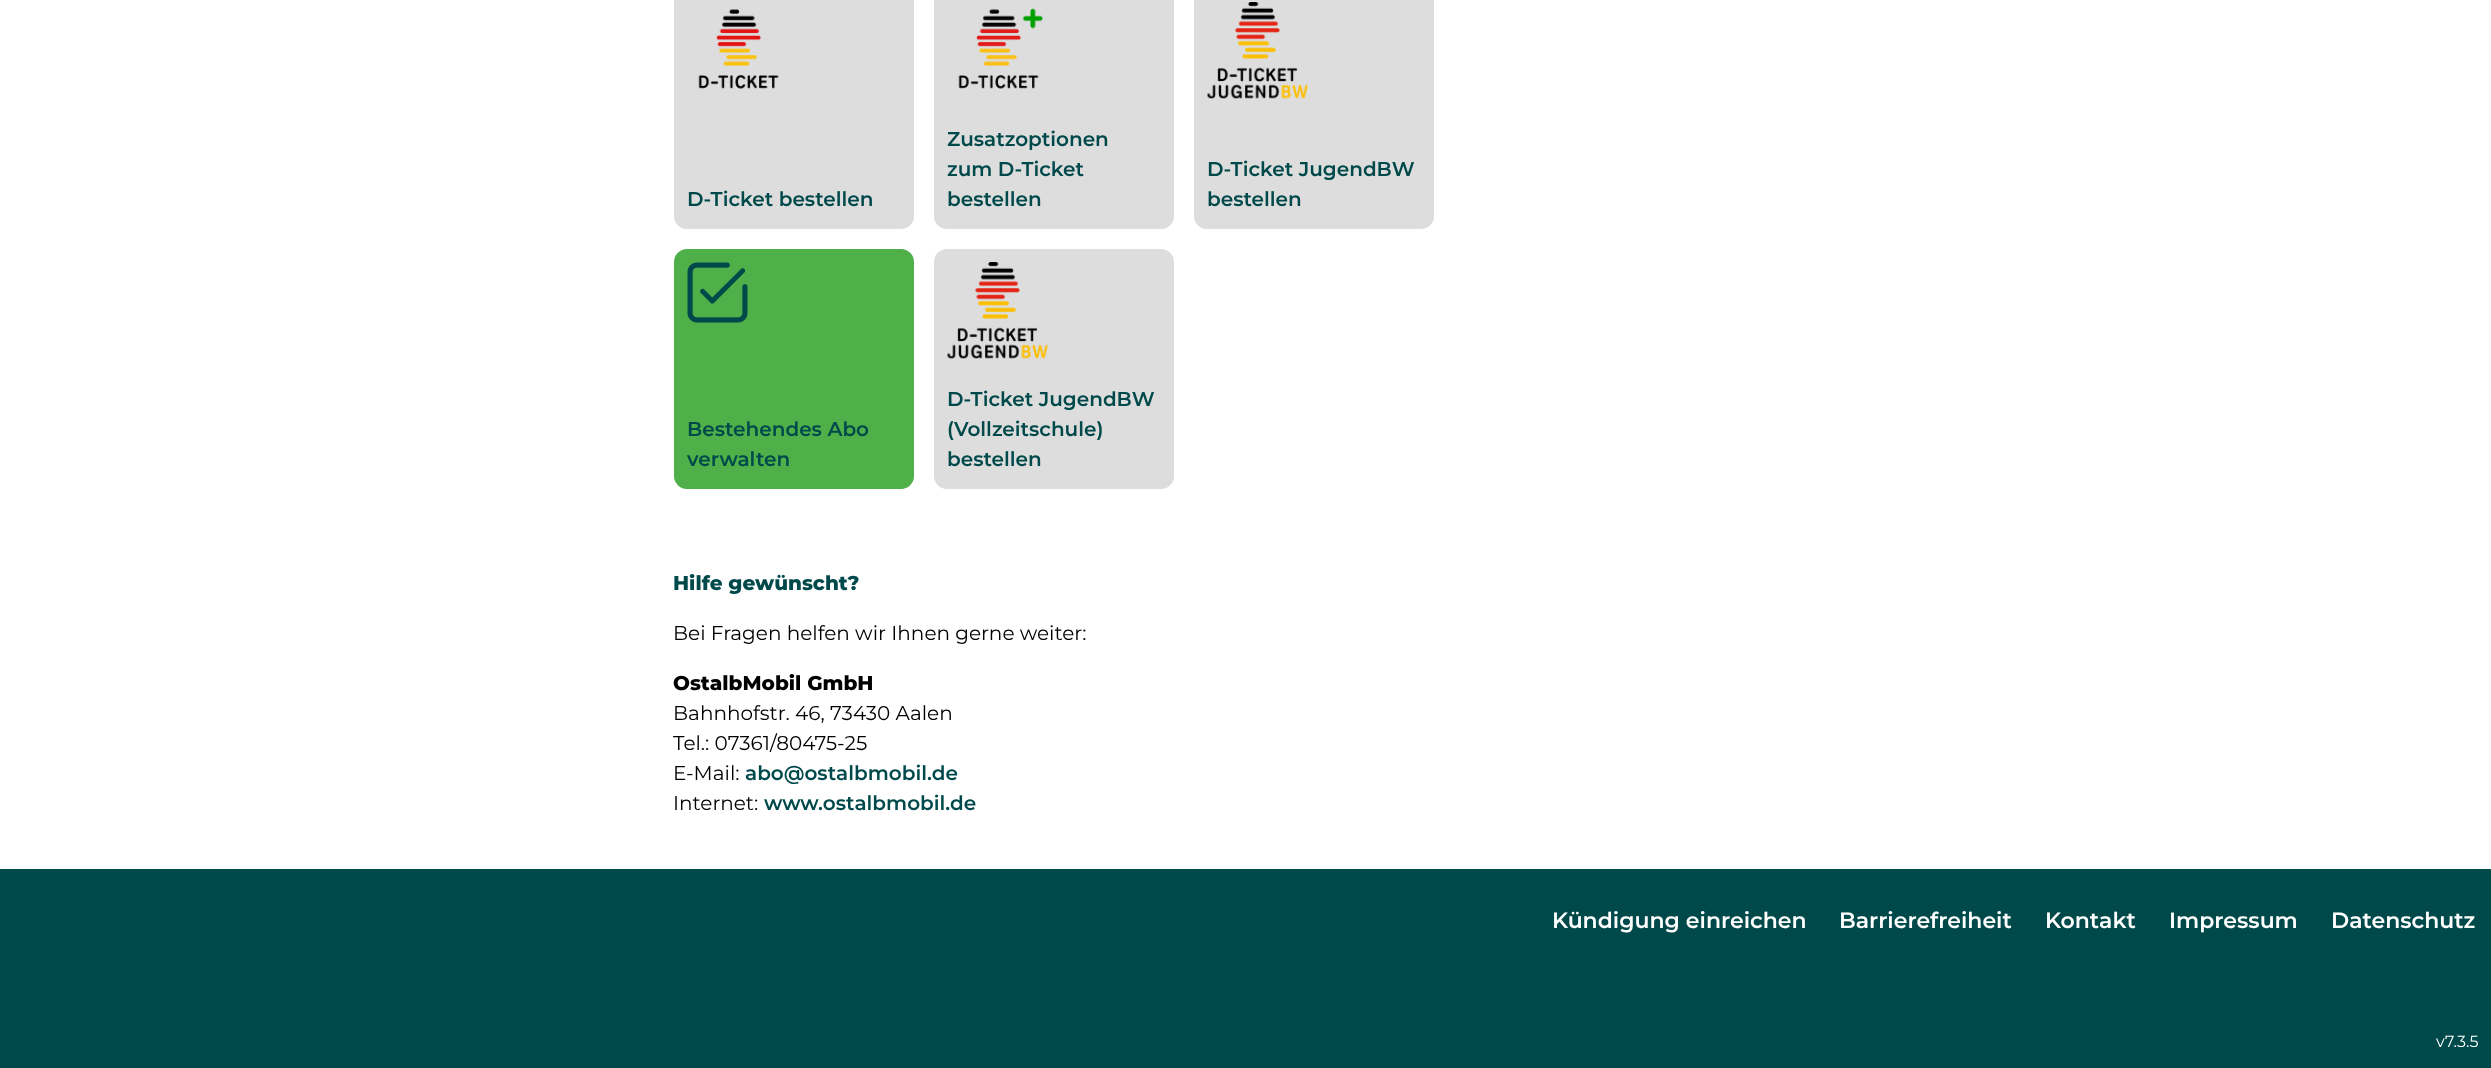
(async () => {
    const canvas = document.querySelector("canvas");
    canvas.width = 2491;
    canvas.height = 1068;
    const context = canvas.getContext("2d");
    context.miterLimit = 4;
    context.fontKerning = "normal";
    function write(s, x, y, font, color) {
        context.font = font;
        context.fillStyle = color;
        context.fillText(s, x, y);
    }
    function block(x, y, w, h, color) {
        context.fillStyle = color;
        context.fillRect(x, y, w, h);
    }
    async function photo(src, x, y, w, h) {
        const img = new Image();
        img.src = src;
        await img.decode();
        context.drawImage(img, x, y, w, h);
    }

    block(0, 0, 2491, 1068, "rgb(255, 255, 255)");
    context.fillStyle = "rgb(221, 221, 221)";
    context.beginPath();
    context.roundRect(676, -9, 236, 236, 11);
    context.fill();
    context.strokeStyle = "rgb(221, 221, 221)";
    context.lineWidth = 4;
    context.stroke();
    await photo("media/1.png", 698, 9, 81, 80);
    write("D-Ticket bestellen", 687, 206, "600 20px Montserrat", "rgb(0, 73, 74)");
    context.fillStyle = "rgb(221, 221, 221)";
    context.beginPath();
    context.roundRect(936, -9, 236, 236, 11);
    context.fill();
    context.stroke();
    await photo("media/2.png", 958, 8, 85, 81);
    write("Zusatzoptionen", 947, 146, "600 20px Montserrat", "rgb(0, 73, 74)");
    write("zum D-Ticket", 947, 176, "600 20px Montserrat", "rgb(0, 73, 74)");
    write("bestellen", 947, 206, "600 20px Montserrat", "rgb(0, 73, 74)");
    context.fillStyle = "rgb(221, 221, 221)";
    context.beginPath();
    context.roundRect(1196, -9, 236, 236, 11);
    context.fill();
    context.stroke();
    await photo("media/3.png", 1207, 2, 101, 97);
    write("D-Ticket JugendBW", 1207, 176, "600 20px Montserrat", "rgb(0, 73, 74)");
    write("bestellen", 1207, 206, "600 20px Montserrat", "rgb(0, 73, 74)");
    context.fillStyle = "rgb(79, 175, 72)";
    context.beginPath();
    context.roundRect(676, 251, 236, 236, 11);
    context.fill();
    context.strokeStyle = "rgb(79, 175, 72)";
    context.stroke();
    await photo("media/4.png", 687, 262, 61, 61);
    write("Bestehendes Abo", 687, 436, "600 20px Montserrat", "rgb(0, 73, 74)");
    write("verwalten", 687, 466, "600 20px Montserrat", "rgb(0, 73, 74)");
    context.fillStyle = "rgb(221, 221, 221)";
    context.beginPath();
    context.roundRect(936, 251, 236, 236, 11);
    context.fill();
    context.strokeStyle = "rgb(221, 221, 221)";
    context.stroke();
    await photo("media/5.png", 947, 262, 101, 97);
    write("D-Ticket JugendBW", 947, 406, "600 20px Montserrat", "rgb(0, 73, 74)");
    write("(Vollzeitschule)", 947, 436, "600 20px Montserrat", "rgb(0, 73, 74)");
    write("bestellen", 947, 466, "600 20px Montserrat", "rgb(0, 73, 74)");
    write("Hilfe gewünscht?", 673, 590, "800 20px Montserrat", "rgb(0, 73, 74)");
    write("Bei Fragen helfen wir Ihnen gerne weiter:", 673, 640, "20px Montserrat", "rgb(0, 0, 0)");
    write("OstalbMobil GmbH", 673, 690, "800 20px Montserrat", "rgb(0, 0, 0)");
    write("Bahnhofstr. 46, 73430 Aalen", 673, 720, "20px Montserrat", "rgb(0, 0, 0)");
    write("Tel.: 07361/80475-25", 673, 750, "20px Montserrat", "rgb(0, 0, 0)");
    write("E-Mail:", 673, 780, "20px Montserrat", "rgb(0, 0, 0)");
    write("abo@ostalbmobil.de", 745, 780, "600 20px Montserrat", "rgb(0, 73, 74)");
    write("Internet:", 673, 810, "20px Montserrat", "rgb(0, 0, 0)");
    write("www.ostalbmobil.de", 764, 810, "600 20px Montserrat", "rgb(0, 73, 74)");
    block(0, 869, 2491, 199, "rgb(0, 73, 74)");
    write("Kündigung einreichen", 1552, 928, "600 22px Montserrat", "rgb(255, 255, 255)");
    write("Barrierefreiheit", 1839, 928, "600 22px Montserrat", "rgb(255, 255, 255)");
    write("Kontakt", 2045, 928, "600 22px Montserrat", "rgb(255, 255, 255)");
    write("Impressum", 2169, 928, "600 22px Montserrat", "rgb(255, 255, 255)");
    write("Datenschutz", 2331, 928, "600 22px Montserrat", "rgb(255, 255, 255)");
    write("v7.3.5", 2436, 1047, "16px Montserrat", "rgb(255, 255, 255)");
})();
